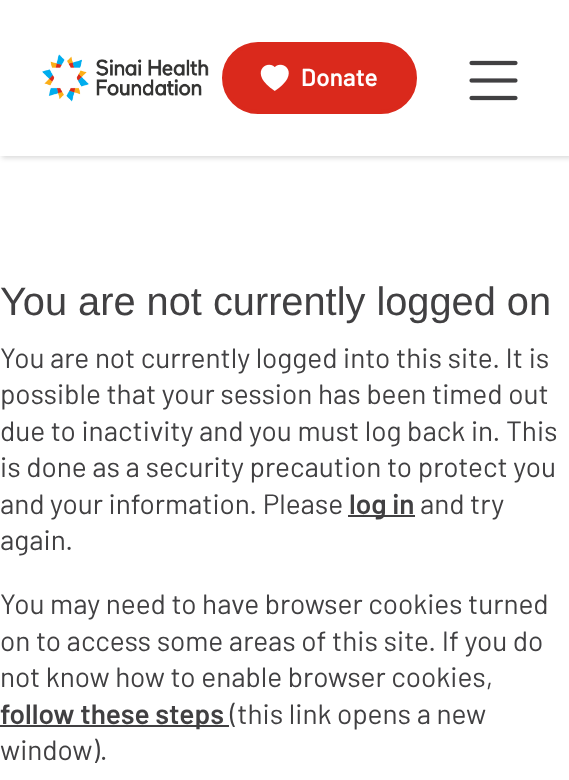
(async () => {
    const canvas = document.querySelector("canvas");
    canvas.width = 569;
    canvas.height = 780;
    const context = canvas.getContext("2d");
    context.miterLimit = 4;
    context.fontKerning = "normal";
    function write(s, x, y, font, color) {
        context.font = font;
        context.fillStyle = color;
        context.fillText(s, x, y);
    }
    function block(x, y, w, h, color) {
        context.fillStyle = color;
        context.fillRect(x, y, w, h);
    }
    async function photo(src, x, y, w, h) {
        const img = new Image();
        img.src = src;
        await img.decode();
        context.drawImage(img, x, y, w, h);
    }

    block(0, 0, 569, 780, "rgb(255, 255, 255)");
    context.fillStyle = "rgba(0, 0, 0, 0.15)";
    context.filter = "blur(2.5px)";
    context.beginPath();
    context.rect(2, 2, 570, 156);
    context.fill();
    context.filter = "none";
    block(0, 0, 569, 156, "rgb(255, 255, 255)");
    await photo("media/1.png", 42, 54, 167, 48);
    context.fillStyle = "rgb(218, 41, 28)";
    context.beginPath();
    context.roundRect(224, 44, 191, 68, 34);
    context.fill();
    context.strokeStyle = "rgb(218, 41, 28)";
    context.lineWidth = 4;
    context.stroke();
    await photo("media/2.png", 260, 64, 29, 27);
    write("Donate", 301, 86, "600 24.5px Barlow", "rgb(255, 255, 255)");
    await photo("media/3.png", 469, 60, 49, 41);
    write("You are not currently logged on", 0, 315, "39.75px Liberation Sans", "rgb(65, 64, 66)");
    write("You are not currently logged into this site. It is", 0, 368, "28px Barlow", "rgb(65, 64, 66)");
    write("possible that your session has been timed out", 0, 404, "28px Barlow", "rgb(65, 64, 66)");
    write("due to inactivity and you must log back in. This", 0, 441, "28px Barlow", "rgb(65, 64, 66)");
    write("is done as a security precaution to protect you", 0, 477, "28px Barlow", "rgb(65, 64, 66)");
    write("and your information. Please", 0, 514, "28px Barlow", "rgb(65, 64, 66)");
    block(348, 515, 67, 2, "rgb(65, 64, 66)");
    write("log in", 349, 514, "600 28px Barlow", "rgb(65, 64, 66)");
    write("and try", 420, 514, "28px Barlow", "rgb(65, 64, 66)");
    write("again.", 0, 550, "28px Barlow", "rgb(65, 64, 66)");
    write("You may need to have browser cookies turned", 0, 614, "28px Barlow", "rgb(65, 64, 66)");
    write("on to access some areas of this site. If you do", 0, 651, "28px Barlow", "rgb(65, 64, 66)");
    write("not know how to enable browser cookies,", 0, 687, "28px Barlow", "rgb(65, 64, 66)");
    block(0, 725, 229, 2, "rgb(65, 64, 66)");
    write("follow these steps", 0, 724, "600 28px Barlow", "rgb(65, 64, 66)");
    write("(this link opens a new", 230, 724, "28px Barlow", "rgb(65, 64, 66)");
    write("window).", 0, 760, "28px Barlow", "rgb(65, 64, 66)");
})();
